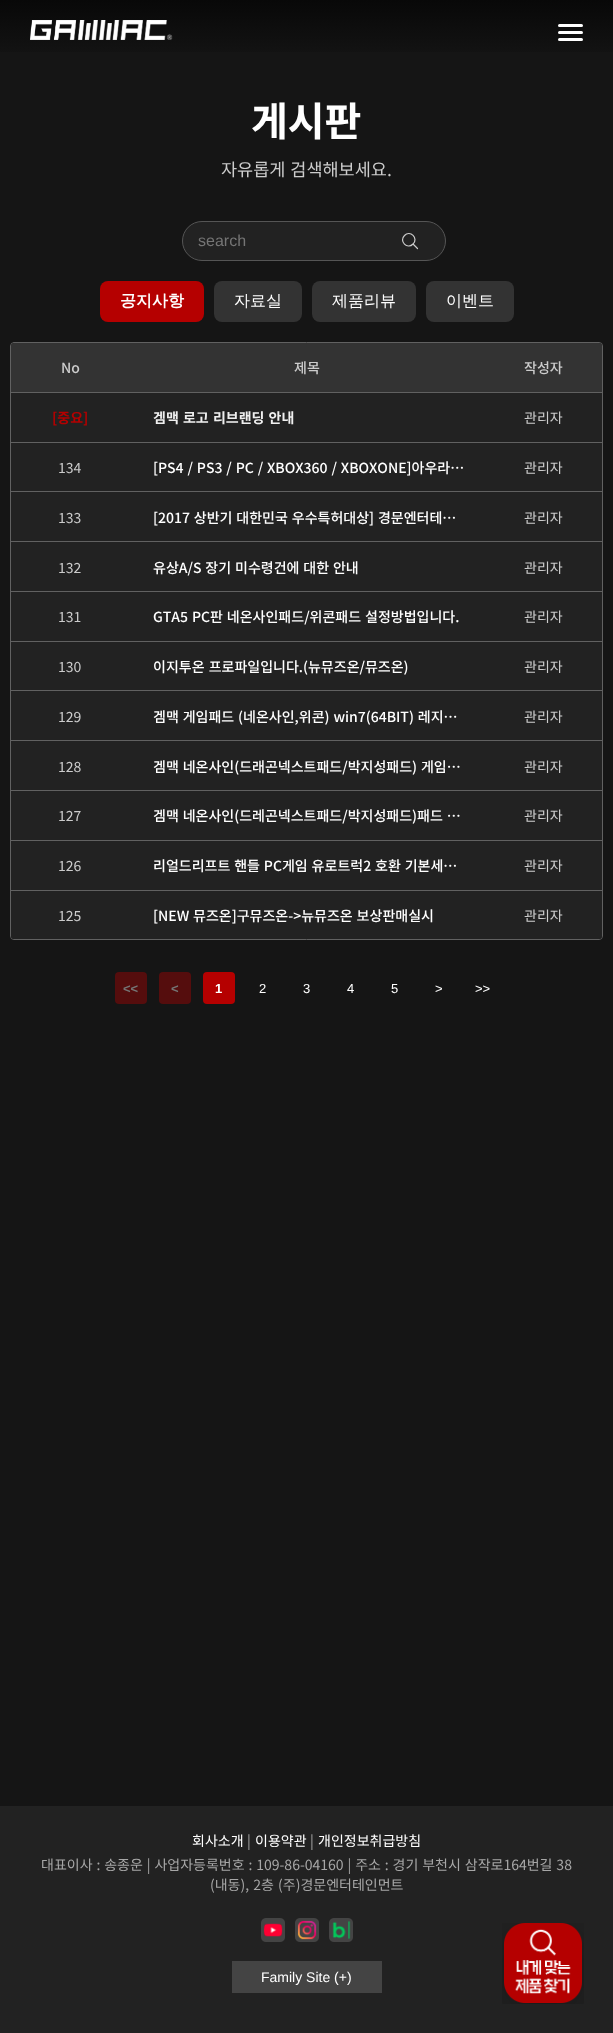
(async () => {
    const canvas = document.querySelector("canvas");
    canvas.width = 613;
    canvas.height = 2033;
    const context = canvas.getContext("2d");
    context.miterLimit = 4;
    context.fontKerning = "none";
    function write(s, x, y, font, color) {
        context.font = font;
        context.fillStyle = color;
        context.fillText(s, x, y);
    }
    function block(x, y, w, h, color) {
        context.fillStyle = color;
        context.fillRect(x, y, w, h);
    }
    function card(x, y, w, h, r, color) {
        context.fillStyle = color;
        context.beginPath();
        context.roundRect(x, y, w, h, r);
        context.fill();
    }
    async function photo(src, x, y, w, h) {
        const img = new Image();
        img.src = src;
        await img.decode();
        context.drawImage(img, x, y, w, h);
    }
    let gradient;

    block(0, 0, 613, 2033, "rgb(21, 21, 21)");
    gradient = context.createLinearGradient(307, 0, 307, 64);
    gradient.addColorStop(0, "rgb(8, 8, 8)");
    gradient.addColorStop(1, "rgb(21, 21, 21)");
    context.fillStyle = gradient;
    context.fillRect(0, 0, 613, 52);
    await photo("media/1.png", 30, 20, 143, 20);
    card(558, 24, 25, 3, 1.5, "rgb(255, 255, 255)");
    card(558, 31, 25, 3, 1.5, "rgb(255, 255, 255)");
    card(558, 38, 25, 3, 1.5, "rgb(255, 255, 255)");
    write("게시판", 251, 136, "bold 40px Noto Sans KR", "rgb(255, 255, 255)");
    context.wordSpacing = "1px";
    write("자유롭게 검색해보세요.", 221, 176, "17.5px Noto Sans KR", "rgb(204, 204, 204)");
    context.fillStyle = "rgb(34, 34, 34)";
    context.beginPath();
    context.roundRect(182.5, 221.5, 263, 39, 19.5);
    context.fill();
    context.strokeStyle = "rgb(85, 85, 85)";
    context.stroke();
    context.wordSpacing = "0px";
    write("search", 198, 246, "16px Liberation Sans", "rgb(117, 117, 117)");
    context.beginPath();
    context.moveTo(417.5, 248.5);
    context.lineTo(413, 244);
    context.moveTo(413, 244);
    context.bezierCurveTo(419, 238.5, 410, 229.5, 404.5, 235.5);
    context.bezierCurveTo(398.5, 241, 407.5, 250, 413, 244);
    context.closePath();
    context.strokeStyle = "rgb(204, 204, 204)";
    context.lineWidth = 1.2;
    context.lineCap = "round";
    context.lineJoin = "round";
    context.stroke();
    card(100, 281, 104, 41, 8, "rgb(181, 0, 0)");
    write("공지사항", 120, 306, "bold 16px WenQuanYi Zen Hei", "rgb(255, 255, 255)");
    card(214, 281, 88, 41, 8, "rgb(51, 51, 51)");
    write("자료실", 234, 306, "500 16px WenQuanYi Zen Hei", "rgb(255, 255, 255)");
    card(312, 281, 104, 41, 8, "rgb(51, 51, 51)");
    write("제품리뷰", 332, 306, "500 16px WenQuanYi Zen Hei", "rgb(255, 255, 255)");
    card(426, 281, 88, 41, 8, "rgb(51, 51, 51)");
    write("이벤트", 446, 306, "500 16px WenQuanYi Zen Hei", "rgb(255, 255, 255)");
    context.beginPath();
    context.roundRect(10.5, 342.5, 592, 597, 3.5);
    context.strokeStyle = "rgb(97, 97, 97)";
    context.lineWidth = 1;
    context.lineJoin = "miter";
    context.stroke();
    context.fillStyle = "rgb(51, 51, 51)";
    context.beginPath();
    context.roundRect(11, 343, 591, 49, [3, 3, 0, 0]);
    context.fill();
    write("No", 61, 373, "500 14px Noto Sans KR", "rgb(204, 204, 204)");
    write("제목", 294, 373, "500 14px Noto Sans KR", "rgb(204, 204, 204)");
    write("작성자", 524, 373, "500 14px Noto Sans KR", "rgb(204, 204, 204)");
    block(11, 393, 591, 49, "rgb(34, 34, 34)");
    block(11, 392, 591, 1, "rgb(97, 97, 97)");
    write("[중요]", 52, 423, "bold 14px Noto Sans KR", "rgb(181, 0, 0)");
    context.wordSpacing = "1px";
    write("겜맥 로고 리브랜딩 안내", 153, 423, "bold 14px Noto Sans KR", "rgb(239, 239, 239)");
    context.wordSpacing = "0px";
    write("관리자", 524, 423, "14px Noto Sans KR", "rgb(204, 204, 204)");
    block(11, 443, 591, 48, "rgb(34, 34, 34)");
    block(11, 442, 591, 1, "rgb(97, 97, 97)");
    write("134", 58, 473, "14px Noto Sans KR", "rgb(204, 204, 204)");
    context.wordSpacing = "0.75px";
    write("[PS4 / PS3 / PC / XBOX360 / XBOXONE]아우라…", 153, 473, "500 14px Noto Sans KR", "rgb(255, 255, 255)");
    context.wordSpacing = "0px";
    write("관리자", 524, 473, "14px Noto Sans KR", "rgb(204, 204, 204)");
    block(11, 492, 591, 49, "rgb(34, 34, 34)");
    block(11, 491, 591, 1, "rgb(97, 97, 97)");
    write("133", 58, 523, "14px Noto Sans KR", "rgb(204, 204, 204)");
    context.wordSpacing = "0.75px";
    write("[2017 상반기 대한민국 우수특허대상] 경문엔터테…", 153, 523, "500 14px Noto Sans KR", "rgb(255, 255, 255)");
    context.wordSpacing = "0px";
    write("관리자", 524, 523, "14px Noto Sans KR", "rgb(204, 204, 204)");
    block(11, 542, 591, 49, "rgb(34, 34, 34)");
    block(11, 541, 591, 1, "rgb(97, 97, 97)");
    write("132", 58, 573, "14px Noto Sans KR", "rgb(204, 204, 204)");
    context.wordSpacing = "0.75px";
    write("유상A/S 장기 미수령건에 대한 안내", 153, 573, "500 14px Noto Sans KR", "rgb(255, 255, 255)");
    context.wordSpacing = "0px";
    write("관리자", 524, 573, "14px Noto Sans KR", "rgb(204, 204, 204)");
    block(11, 592, 591, 49, "rgb(34, 34, 34)");
    block(11, 591, 591, 1, "rgb(97, 97, 97)");
    write("131", 58, 622, "14px Noto Sans KR", "rgb(204, 204, 204)");
    context.wordSpacing = "0.75px";
    write("GTA5 PC판 네온사인패드/위콘패드 설정방법입니다.", 153, 622, "500 14px Noto Sans KR", "rgb(255, 255, 255)");
    context.wordSpacing = "0px";
    write("관리자", 524, 622, "14px Noto Sans KR", "rgb(204, 204, 204)");
    block(11, 642, 591, 48, "rgb(34, 34, 34)");
    block(11, 641, 591, 1, "rgb(97, 97, 97)");
    write("130", 58, 672, "14px Noto Sans KR", "rgb(204, 204, 204)");
    context.wordSpacing = "1px";
    write("이지투온 프로파일입니다.(뉴뮤즈온/뮤즈온)", 153, 672, "500 14px Noto Sans KR", "rgb(255, 255, 255)");
    context.wordSpacing = "0px";
    write("관리자", 524, 672, "14px Noto Sans KR", "rgb(204, 204, 204)");
    block(11, 691, 591, 49, "rgb(34, 34, 34)");
    block(11, 690, 591, 1, "rgb(97, 97, 97)");
    write("129", 58, 722, "14px Noto Sans KR", "rgb(204, 204, 204)");
    context.wordSpacing = "0.75px";
    write("겜맥 게임패드 (네온사인,위콘) win7(64BIT) 레지…", 153, 722, "500 14px Noto Sans KR", "rgb(255, 255, 255)");
    context.wordSpacing = "0px";
    write("관리자", 524, 722, "14px Noto Sans KR", "rgb(204, 204, 204)");
    block(11, 741, 591, 49, "rgb(34, 34, 34)");
    block(11, 740, 591, 1, "rgb(97, 97, 97)");
    write("128", 58, 772, "14px Noto Sans KR", "rgb(204, 204, 204)");
    context.wordSpacing = "0.75px";
    write("겜맥 네온사인(드래곤넥스트패드/박지성패드) 게임…", 153, 772, "500 14px Noto Sans KR", "rgb(255, 255, 255)");
    context.wordSpacing = "0px";
    write("관리자", 524, 772, "14px Noto Sans KR", "rgb(204, 204, 204)");
    block(11, 791, 591, 49, "rgb(34, 34, 34)");
    block(11, 790, 591, 1, "rgb(97, 97, 97)");
    write("127", 58, 821, "14px Noto Sans KR", "rgb(204, 204, 204)");
    context.wordSpacing = "0.75px";
    write("겜맥 네온사인(드레곤넥스트패드/박지성패드)패드 …", 153, 821, "500 14px Noto Sans KR", "rgb(255, 255, 255)");
    context.wordSpacing = "0px";
    write("관리자", 524, 821, "14px Noto Sans KR", "rgb(204, 204, 204)");
    block(11, 841, 591, 49, "rgb(34, 34, 34)");
    block(11, 840, 591, 1, "rgb(97, 97, 97)");
    write("126", 58, 871, "14px Noto Sans KR", "rgb(204, 204, 204)");
    context.wordSpacing = "0.75px";
    write("리얼드리프트 핸들 PC게임 유로트럭2 호환 기본세…", 153, 871, "500 14px Noto Sans KR", "rgb(255, 255, 255)");
    context.wordSpacing = "0px";
    write("관리자", 524, 871, "14px Noto Sans KR", "rgb(204, 204, 204)");
    context.fillStyle = "rgb(34, 34, 34)";
    context.beginPath();
    context.roundRect(11, 890, 591, 49, [0, 0, 3, 3]);
    context.fill();
    block(11, 890, 591, 1, "rgb(97, 97, 97)");
    write("125", 58, 921, "14px Noto Sans KR", "rgb(204, 204, 204)");
    context.wordSpacing = "0.75px";
    write("[NEW 뮤즈온]구뮤즈온->뉴뮤즈온 보상판매실시", 153, 921, "500 14px Noto Sans KR", "rgb(255, 255, 255)");
    context.wordSpacing = "0px";
    write("관리자", 524, 921, "14px Noto Sans KR", "rgb(204, 204, 204)");
    card(115, 972, 32, 32, 4, "rgb(85, 13, 13)");
    write("<<", 123, 993, "bold 13px Liberation Sans", "rgb(117, 117, 117)");
    card(159, 972, 32, 32, 4, "rgb(85, 13, 13)");
    write("<", 171, 993, "bold 13px Liberation Sans", "rgb(117, 117, 117)");
    card(203, 972, 32, 32, 4, "rgb(181, 0, 0)");
    write("1", 215, 993, "bold 13px Liberation Sans", "rgb(255, 255, 255)");
    write("2", 259, 993, "13px Liberation Sans", "rgb(255, 255, 255)");
    write("3", 303, 993, "13px Liberation Sans", "rgb(255, 255, 255)");
    write("4", 347, 993, "13px Liberation Sans", "rgb(255, 255, 255)");
    write("5", 391, 993, "13px Liberation Sans", "rgb(255, 255, 255)");
    write(">", 435, 993, "13px Liberation Sans", "rgb(255, 255, 255)");
    write(">>", 475, 993, "13px Liberation Sans", "rgb(255, 255, 255)");
    block(0, 1806, 613, 227, "rgb(34, 34, 34)");
    write("회사소개", 192, 1846, "14px Noto Sans KR", "rgb(255, 255, 255)");
    write("|", 247, 1846, "14px Noto Sans KR", "rgb(167, 167, 167)");
    write("이용약관", 255, 1846, "14px Noto Sans KR", "rgb(255, 255, 255)");
    write("|", 310, 1846, "14px Noto Sans KR", "rgb(167, 167, 167)");
    write("개인정보취급방침", 318, 1846, "14px Noto Sans KR", "rgb(255, 255, 255)");
    context.wordSpacing = "0.75px";
    write("대표이사 : 송종운 | 사업자등록번호 : 109-86-04160 | 주소 : 경기 부천시 삼작로164번길 38", 41, 1870, "14px Noto Sans KR", "rgb(167, 167, 167)");
    context.wordSpacing = "1px";
    write("(내동), 2층 (주)경문엔터테인먼트", 210, 1890, "14px Noto Sans KR", "rgb(167, 167, 167)");
    await photo("media/2.png", 261, 1918, 24, 24);
    await photo("media/3.png", 295, 1918, 24, 24);
    await photo("media/4.png", 329, 1918, 24, 24);
    block(232, 1961, 150, 32, "rgb(68, 68, 68)");
    context.wordSpacing = "0px";
    write("Family Site (+)", 261, 1982, "14px Liberation Sans", "rgb(255, 255, 255)");
    await photo("media/5.png", 502, 1923, 82, 81);
})();
